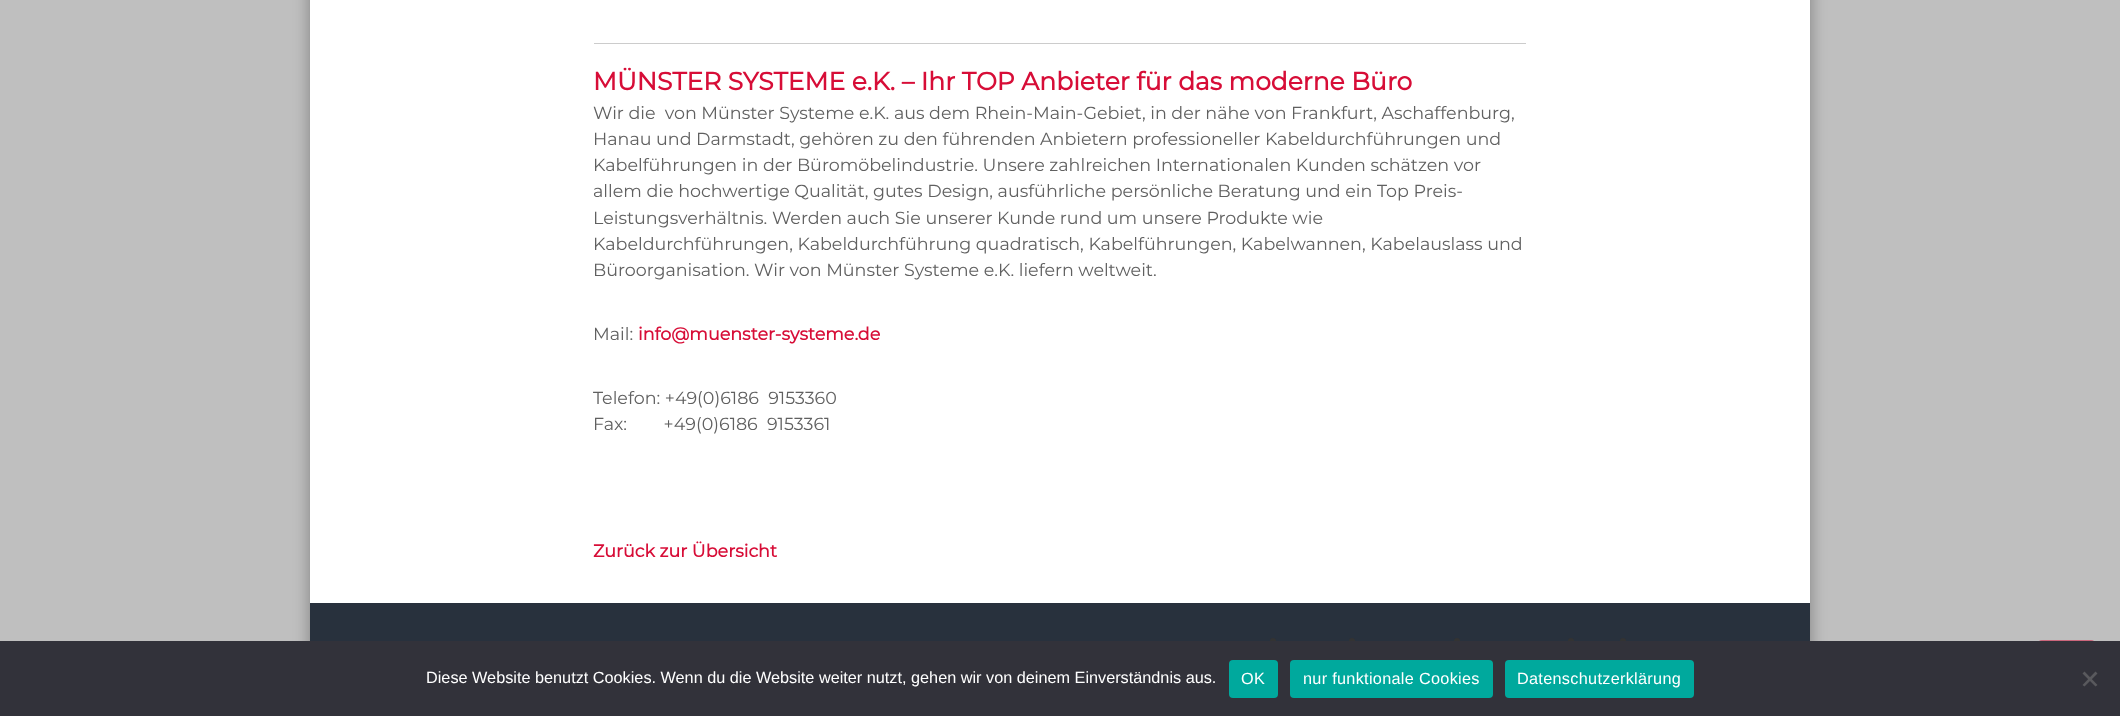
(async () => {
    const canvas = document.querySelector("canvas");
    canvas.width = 2120;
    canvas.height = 716;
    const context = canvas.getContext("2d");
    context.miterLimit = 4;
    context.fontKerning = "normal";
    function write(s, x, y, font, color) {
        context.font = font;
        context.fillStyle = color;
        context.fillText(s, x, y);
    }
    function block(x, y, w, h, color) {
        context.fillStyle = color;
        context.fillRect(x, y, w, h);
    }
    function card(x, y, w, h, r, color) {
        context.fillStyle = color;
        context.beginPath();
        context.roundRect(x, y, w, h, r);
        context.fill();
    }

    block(0, 0, 2120, 716, "rgb(191, 191, 191)");
    context.fillStyle = "rgba(0, 0, 0, 0.3)";
    context.filter = "blur(7.5px)";
    context.beginPath();
    context.rect(309, -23, 1502, 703);
    context.fill();
    context.filter = "none";
    block(310, 0, 1500, 603, "rgb(255, 255, 255)");
    block(594, 43, 932, 1, "rgb(204, 204, 204)");
    write("MÜNSTER SYSTEME e.K. – Ihr TOP Anbieter für das moderne Büro", 593, 90, "bold 25px Montserrat", "rgb(215, 13, 55)");
    write("Wir die  von Münster Systeme e.K. aus dem Rhein-Main-Gebiet, in der nähe von Frankfurt, Aschaffenburg,", 593, 119, "17.5px Montserrat", "rgb(96, 96, 96)");
    write("Hanau und Darmstadt, gehören zu den führenden Anbietern professioneller Kabeldurchführungen und", 593, 145, "17.5px Montserrat", "rgb(96, 96, 96)");
    write("Kabelführungen in der Büromöbelindustrie. Unsere zahlreichen Internationalen Kunden schätzen vor", 593, 171, "17.5px Montserrat", "rgb(96, 96, 96)");
    write("allem die hochwertige Qualität, gutes Design, ausführliche persönliche Beratung und ein Top Preis-", 593, 197, "17.5px Montserrat", "rgb(96, 96, 96)");
    write("Leistungsverhältnis. Werden auch Sie unserer Kunde rund um unsere Produkte wie", 593, 224, "17.5px Montserrat", "rgb(96, 96, 96)");
    write("Kabeldurchführungen, Kabeldurchführung quadratisch, Kabelführungen, Kabelwannen, Kabelauslass und", 593, 250, "17.5px Montserrat", "rgb(96, 96, 96)");
    write("Büroorganisation. Wir von Münster Systeme e.K. liefern weltweit.", 593, 276, "17.5px Montserrat", "rgb(96, 96, 96)");
    write("Mail:", 593, 340, "17.5px Montserrat", "rgb(96, 96, 96)");
    write("info@muenster-systeme.de", 638, 340, "bold 17.5px Montserrat", "rgb(215, 13, 55)");
    write("Telefon: +49(0)6186  9153360", 593, 404, "17.5px Montserrat", "rgb(96, 96, 96)");
    write("Fax:        +49(0)6186  9153361", 593, 430, "17.5px Montserrat", "rgb(96, 96, 96)");
    write("Zurück zur Übersicht", 593, 557, "bold 17.5px Montserrat", "rgb(215, 13, 55)");
    block(310, 603, 1500, 38, "rgb(40, 49, 61)");
    context.fillStyle = "rgb(51, 51, 51)";
    context.beginPath();
    context.arc(1273, 641, 3, 0, Math.PI * 2);
    context.fill();
    context.beginPath();
    context.arc(1352, 641, 3, 0, Math.PI * 2);
    context.fill();
    context.beginPath();
    context.arc(1457, 641, 3, 0, Math.PI * 2);
    context.fill();
    context.beginPath();
    context.arc(1571, 641, 3, 0, Math.PI * 2);
    context.fill();
    context.beginPath();
    context.arc(1623, 641, 3, 0, Math.PI * 2);
    context.fill();
    card(2038, 640, 57, 51, 4, "rgb(203, 102, 123)");
    block(0, 641, 2120, 75, "rgb(50, 50, 58)");
    write("Diese Website benutzt Cookies. Wenn du die Website weiter nutzt, gehen wir von deinem Einverständnis aus.", 426, 683, "16.25px Liberation Sans", "rgb(255, 255, 255)");
    card(1229, 660, 49, 38, 4, "rgb(0, 169, 157)");
    context.letterSpacing = "0.3px";
    write("OK", 1241, 684, "16.25px Liberation Sans", "rgb(255, 255, 255)");
    card(1290, 660, 203, 38, 4, "rgb(0, 169, 157)");
    write("nur funktionale Cookies", 1303, 684, "16.25px Liberation Sans", "rgb(255, 255, 255)");
    card(1505, 660, 189, 38, 4, "rgb(0, 169, 157)");
    write("Datenschutzerklärung", 1517, 684, "16.25px Liberation Sans", "rgb(255, 255, 255)");
    context.fillStyle = "rgb(89, 89, 93)";
    context.beginPath();
    context.moveTo(2095.5, 671.5);
    context.lineTo(2097.5, 673.5);
    context.lineTo(2084.5, 686.5);
    context.lineTo(2082.5, 685);
    context.closePath();
    context.fill();
    context.beginPath();
    context.moveTo(2082.5, 673.5);
    context.lineTo(2084.5, 671.5);
    context.lineTo(2097.5, 685);
    context.lineTo(2095.5, 686.5);
    context.closePath();
    context.fill();
})();
